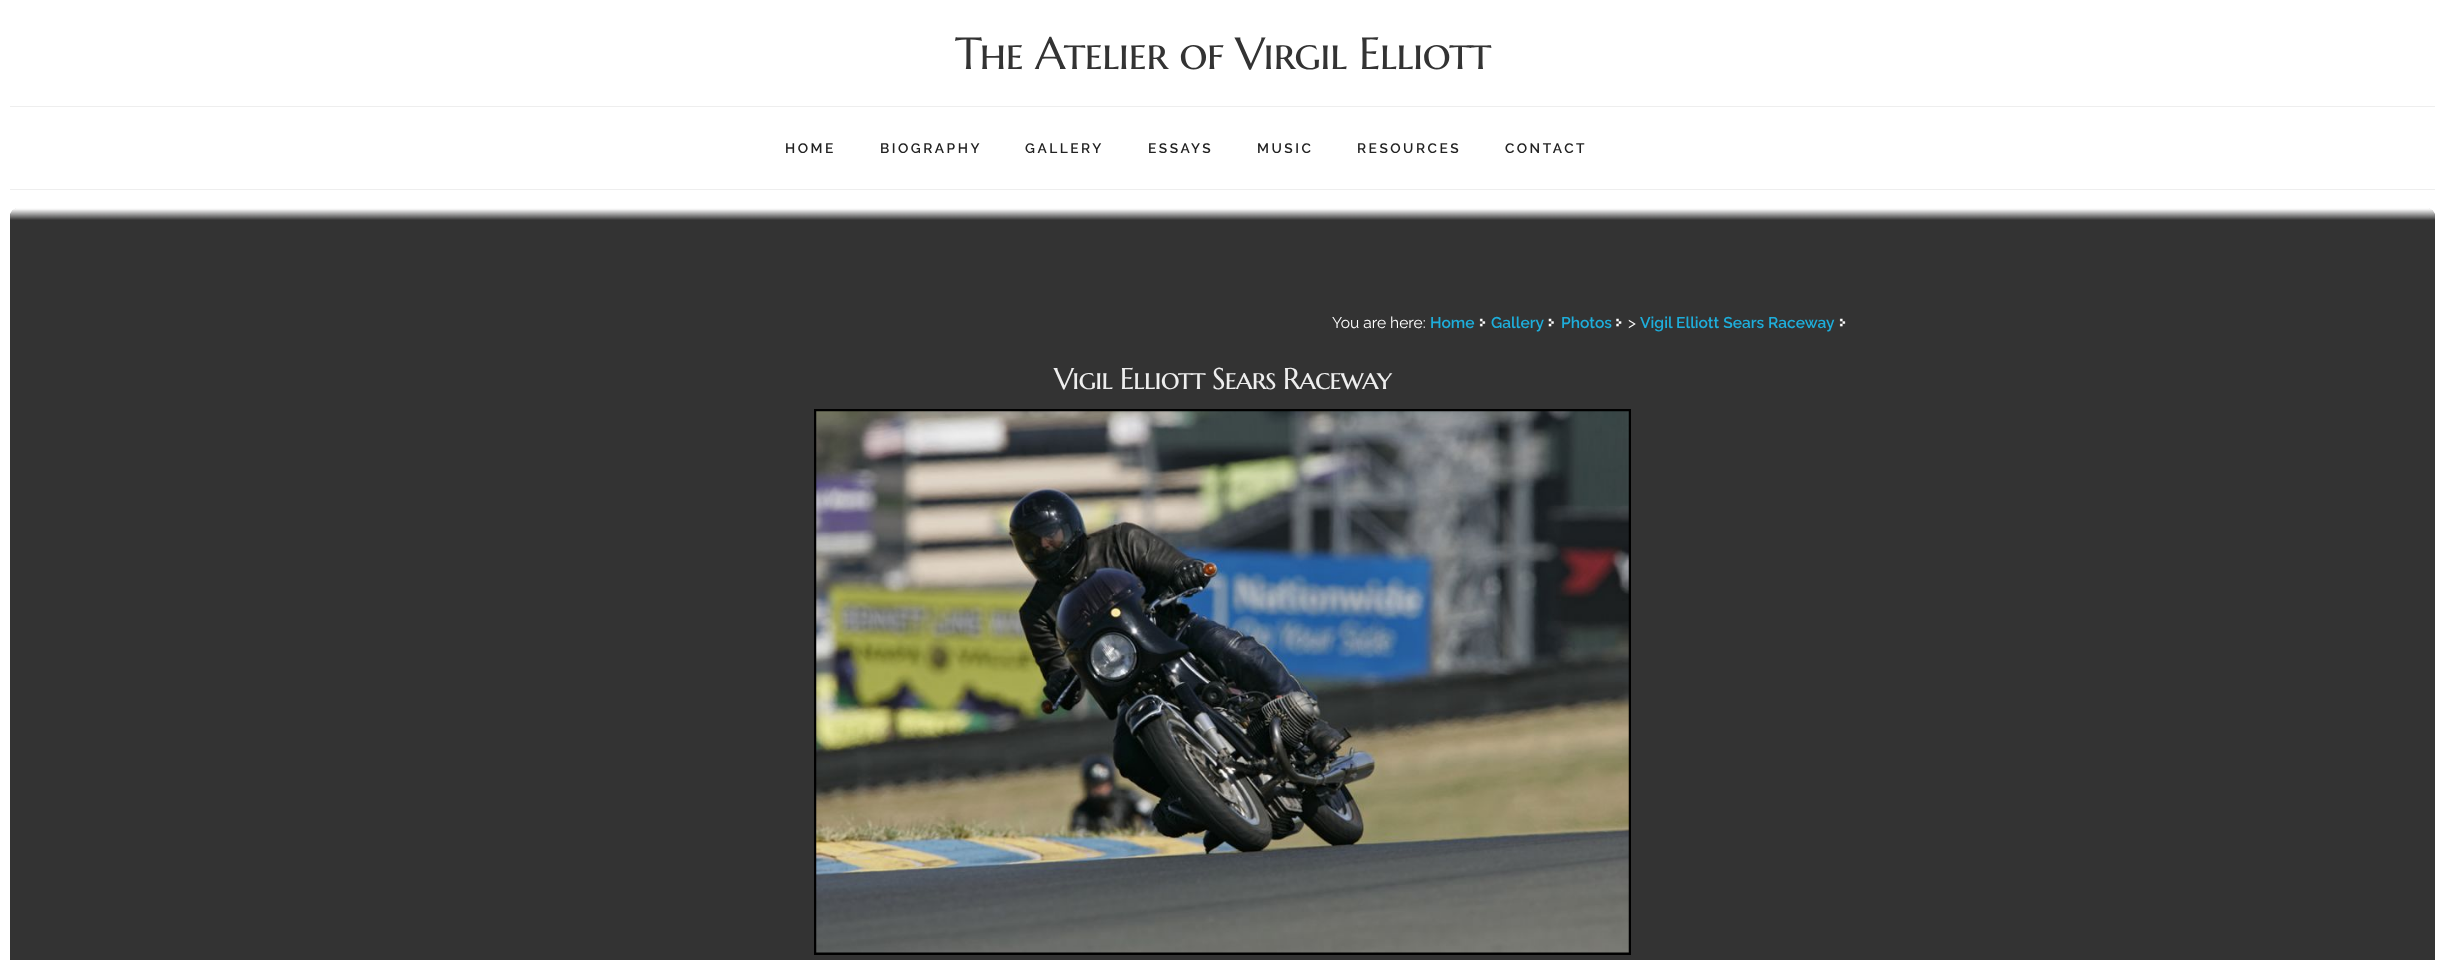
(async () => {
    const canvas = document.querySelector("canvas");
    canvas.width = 2444;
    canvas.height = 960;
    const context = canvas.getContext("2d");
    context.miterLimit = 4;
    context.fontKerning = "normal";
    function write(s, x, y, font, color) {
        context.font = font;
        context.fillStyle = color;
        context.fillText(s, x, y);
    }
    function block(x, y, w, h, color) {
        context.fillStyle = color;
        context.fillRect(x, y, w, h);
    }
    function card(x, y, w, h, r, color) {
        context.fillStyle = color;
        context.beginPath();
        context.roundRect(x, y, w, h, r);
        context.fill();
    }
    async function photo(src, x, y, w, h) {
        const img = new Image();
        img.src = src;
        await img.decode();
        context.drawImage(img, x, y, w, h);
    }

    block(0, 0, 2444, 960, "rgb(255, 255, 255)");
    context.letterSpacing = "-1.25px";
    write("The Atelier of Virgil Elliott", 955, 69, "45px Marcellus SC", "rgb(51, 51, 51)");
    block(10, 106, 2425, 1, "rgb(238, 238, 238)");
    block(10, 189, 2425, 1, "rgb(238, 238, 238)");
    context.letterSpacing = "2.5px";
    write("HOME", 785, 153, "600 13.75px Raleway", "rgb(34, 34, 34)");
    write("BIOGRAPHY", 880, 153, "600 13.75px Raleway", "rgb(34, 34, 34)");
    write("GALLERY", 1025, 153, "600 13.75px Raleway", "rgb(34, 34, 34)");
    write("ESSAYS", 1148, 153, "600 13.75px Raleway", "rgb(34, 34, 34)");
    write("MUSIC", 1257, 153, "600 13.75px Raleway", "rgb(34, 34, 34)");
    write("RESOURCES", 1357, 153, "600 13.75px Raleway", "rgb(34, 34, 34)");
    write("CONTACT", 1505, 153, "600 13.75px Raleway", "rgb(34, 34, 34)");
    card(10, 208, 2425, 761, 9, "rgb(51, 51, 51)");
    await photo("media/1.png", 10, 208, 2425, 12);
    context.letterSpacing = "0px";
    write("You are here:", 1332, 328, "15.6px Raleway", "rgb(255, 255, 255)");
    write("Home", 1430, 328, "600 15.6px Raleway", "rgb(30, 174, 219)");
    await photo("media/2.png", 1479, 318, 7, 9);
    write("Gallery", 1491, 328, "600 15.6px Raleway", "rgb(30, 174, 219)");
    await photo("media/3.png", 1548, 318, 6, 9);
    write("Photos", 1561, 328, "600 15.6px Raleway", "rgb(30, 174, 219)");
    await photo("media/4.png", 1616, 318, 6, 9);
    write(">", 1628, 328, "15.6px Raleway", "rgb(255, 255, 255)");
    write("Vigil Elliott Sears Raceway", 1640, 328, "600 15.6px Raleway", "rgb(30, 174, 219)");
    await photo("media/5.png", 1839, 318, 7, 9);
    context.letterSpacing = "-1.25px";
    write("Vigil Elliott Sears Raceway", 1054, 389, "30px Marcellus SC", "rgb(238, 238, 238)");
    context.strokeStyle = "rgb(0, 0, 0)";
    context.lineWidth = 3;
    context.strokeRect(815.5, 410.5, 814, 543);
    await photo("media/6.png", 816, 411, 813, 542);
})();
